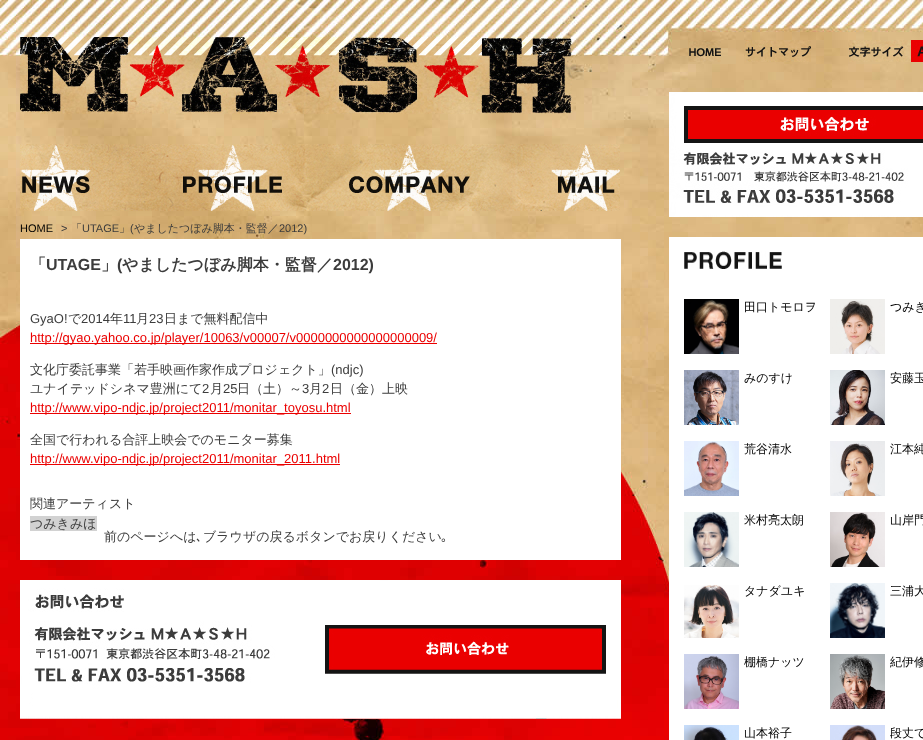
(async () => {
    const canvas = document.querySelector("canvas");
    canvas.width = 923;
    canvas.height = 740;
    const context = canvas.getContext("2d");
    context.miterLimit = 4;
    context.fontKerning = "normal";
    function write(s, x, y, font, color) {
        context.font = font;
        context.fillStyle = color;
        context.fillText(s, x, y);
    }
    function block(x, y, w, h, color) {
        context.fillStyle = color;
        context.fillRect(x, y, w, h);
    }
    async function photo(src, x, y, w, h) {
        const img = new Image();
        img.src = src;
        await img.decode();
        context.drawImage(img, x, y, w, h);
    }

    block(0, 0, 923, 740, "rgb(255, 255, 255)");
    await photo("media/1.png", 0, 0, 923, 740);
    await photo("media/2.png", 20, 37, 552, 77);
    await photo("media/3.png", 20, 144, 150, 67);
    await photo("media/4.png", 170, 144, 150, 67);
    await photo("media/5.png", 320, 144, 150, 67);
    await photo("media/6.png", 470, 144, 150, 67);
    await photo("media/7.png", 689, 40, 32, 22);
    await photo("media/8.png", 745, 40, 66, 22);
    await photo("media/9.png", 849, 40, 62, 22);
    await photo("media/10.png", 911, 40, 12, 22);
    await photo("media/11.png", 669, 92, 254, 125);
    await photo("media/12.png", 684, 106, 239, 37);
    write("HOME", 20, 232, "11px Liberation Sans", "rgb(0, 0, 0)");
    write(">", 61, 232, "11px Liberation Sans", "rgb(60, 60, 60)");
    write("「", 71, 232, "500 11px WenQuanYi Zen Hei", "rgb(60, 60, 60)");
    write("UTAGE", 82, 232, "11px Liberation Sans", "rgb(60, 60, 60)");
    write("」", 119, 232, "500 11px WenQuanYi Zen Hei", "rgb(60, 60, 60)");
    write("(", 130, 232, "11px Liberation Sans", "rgb(60, 60, 60)");
    write("やましたつぼみ脚本・監督／", 134, 232, "500 11px WenQuanYi Zen Hei", "rgb(60, 60, 60)");
    write("2012)", 279, 232, "11px Liberation Sans", "rgb(60, 60, 60)");
    block(20, 239, 601, 321, "rgb(255, 255, 255)");
    write("「", 30, 270, "bold 16px WenQuanYi Zen Hei", "rgb(60, 60, 60)");
    write("UTAGE", 46, 270, "bold 16px Liberation Sans", "rgb(60, 60, 60)");
    write("」", 101, 270, "bold 16px WenQuanYi Zen Hei", "rgb(60, 60, 60)");
    write("(", 117, 270, "bold 16px Liberation Sans", "rgb(60, 60, 60)");
    write("やましたつぼみ脚本・監督／", 122, 270, "bold 16px WenQuanYi Zen Hei", "rgb(60, 60, 60)");
    write("2012)", 333, 270, "bold 16px Liberation Sans", "rgb(60, 60, 60)");
    write("GyaO!", 30, 323, "13px Liberation Sans", "rgb(60, 60, 60)");
    write("で", 68, 323, "500 13px WenQuanYi Zen Hei", "rgb(60, 60, 60)");
    write("2014", 81, 323, "13px Liberation Sans", "rgb(60, 60, 60)");
    write("年", 110, 323, "500 13px WenQuanYi Zen Hei", "rgb(60, 60, 60)");
    write("11", 123, 323, "13px Liberation Sans", "rgb(60, 60, 60)");
    write("月", 136, 323, "500 13px WenQuanYi Zen Hei", "rgb(60, 60, 60)");
    write("23", 149, 323, "13px Liberation Sans", "rgb(60, 60, 60)");
    write("日まで無料配信中", 164, 323, "500 13px WenQuanYi Zen Hei", "rgb(60, 60, 60)");
    block(30, 343, 407, 1, "rgb(235, 0, 0)");
    write("http://gyao.yahoo.co.jp/player/10063/v00007/v0000000000000000009/", 30, 342, "13px Liberation Sans", "rgb(235, 0, 0)");
    write("文化庁委託事業「若手映画作家作成プロジェクト」", 30, 374, "500 13px WenQuanYi Zen Hei", "rgb(60, 60, 60)");
    write("(ndjc)", 331, 374, "13px Liberation Sans", "rgb(60, 60, 60)");
    write("ユナイテッドシネマ豊洲にて", 30, 393, "500 13px WenQuanYi Zen Hei", "rgb(60, 60, 60)");
    write("2", 202, 393, "13px Liberation Sans", "rgb(60, 60, 60)");
    write("月", 210, 393, "500 13px WenQuanYi Zen Hei", "rgb(60, 60, 60)");
    write("25", 223, 393, "13px Liberation Sans", "rgb(60, 60, 60)");
    write("日（土）～", 237, 393, "500 13px WenQuanYi Zen Hei", "rgb(60, 60, 60)");
    write("3", 302, 393, "13px Liberation Sans", "rgb(60, 60, 60)");
    write("月", 309, 393, "500 13px WenQuanYi Zen Hei", "rgb(60, 60, 60)");
    write("2", 322, 393, "13px Liberation Sans", "rgb(60, 60, 60)");
    write("日（金）上映", 330, 393, "500 13px WenQuanYi Zen Hei", "rgb(60, 60, 60)");
    block(30, 413, 321, 1, "rgb(235, 0, 0)");
    write("http://www.vipo-ndjc.jp/project2011/monitar_toyosu.html", 30, 412, "13px Liberation Sans", "rgb(235, 0, 0)");
    write("全国で行われる合評上映会でのモニター募集", 30, 444, "500 13px WenQuanYi Zen Hei", "rgb(60, 60, 60)");
    block(30, 464, 310, 1, "rgb(235, 0, 0)");
    write("http://www.vipo-ndjc.jp/project2011/monitar_2011.html", 30, 463, "13px Liberation Sans", "rgb(235, 0, 0)");
    write("関連アーティスト", 30, 508, "500 13px WenQuanYi Zen Hei", "rgb(60, 60, 60)");
    block(30, 516, 67, 15, "rgb(210, 210, 210)");
    write("つみきみほ", 30, 528, "500 13px WenQuanYi Zen Hei", "rgb(60, 60, 60)");
    write("前のページへは", 104, 541, "500 13px WenQuanYi Zen Hei", "rgb(60, 60, 60)");
    write("､", 196, 541, "13px IPAPGothic", "rgb(60, 60, 60)");
    write("ブラウザの戻るボタンでお戻りください", 203, 541, "500 13px WenQuanYi Zen Hei", "rgb(60, 60, 60)");
    write("｡", 441, 541, "13px IPAPGothic", "rgb(60, 60, 60)");
    await photo("media/13.png", 20, 580, 601, 139);
    await photo("media/14.png", 325, 625, 281, 49);
    block(669, 237, 254, 503, "rgb(255, 255, 255)");
    await photo("media/15.png", 684, 251, 98, 18);
    await photo("media/16.png", 684, 299, 55, 55);
    write("田口トモロヲ", 744, 311, "500 12px WenQuanYi Zen Hei", "rgb(0, 0, 0)");
    await photo("media/17.png", 830, 299, 55, 55);
    write("つみき", 890, 311, "500 12px WenQuanYi Zen Hei", "rgb(0, 0, 0)");
    await photo("media/18.png", 684, 370, 55, 55);
    write("みのすけ", 744, 382, "500 12px WenQuanYi Zen Hei", "rgb(0, 0, 0)");
    await photo("media/19.png", 830, 370, 55, 55);
    write("安藤玉", 890, 382, "500 12px WenQuanYi Zen Hei", "rgb(0, 0, 0)");
    await photo("media/20.png", 684, 441, 55, 55);
    write("荒谷清水", 744, 453, "500 12px WenQuanYi Zen Hei", "rgb(0, 0, 0)");
    await photo("media/21.png", 830, 441, 55, 55);
    write("江本純", 890, 453, "500 12px WenQuanYi Zen Hei", "rgb(0, 0, 0)");
    await photo("media/22.png", 684, 512, 55, 55);
    write("米村亮太朗", 744, 524, "500 12px WenQuanYi Zen Hei", "rgb(0, 0, 0)");
    await photo("media/23.png", 830, 512, 55, 55);
    write("山岸門", 890, 524, "500 12px WenQuanYi Zen Hei", "rgb(0, 0, 0)");
    await photo("media/24.png", 684, 585, 55, 53);
    write("タナダユキ", 744, 595, "500 12px WenQuanYi Zen Hei", "rgb(0, 0, 0)");
    await photo("media/25.png", 830, 583, 55, 55);
    write("三浦大", 890, 595, "500 12px WenQuanYi Zen Hei", "rgb(0, 0, 0)");
    await photo("media/26.png", 684, 654, 55, 55);
    write("棚橋ナッツ", 744, 666, "500 12px WenQuanYi Zen Hei", "rgb(0, 0, 0)");
    await photo("media/27.png", 830, 654, 55, 55);
    write("紀伊修", 890, 666, "500 12px WenQuanYi Zen Hei", "rgb(0, 0, 0)");
    await photo("media/28.png", 684, 725, 55, 15);
    write("山本裕子", 744, 737, "500 12px WenQuanYi Zen Hei", "rgb(0, 0, 0)");
    await photo("media/29.png", 830, 725, 55, 15);
    write("段丈て", 890, 737, "500 12px WenQuanYi Zen Hei", "rgb(0, 0, 0)");
})();
